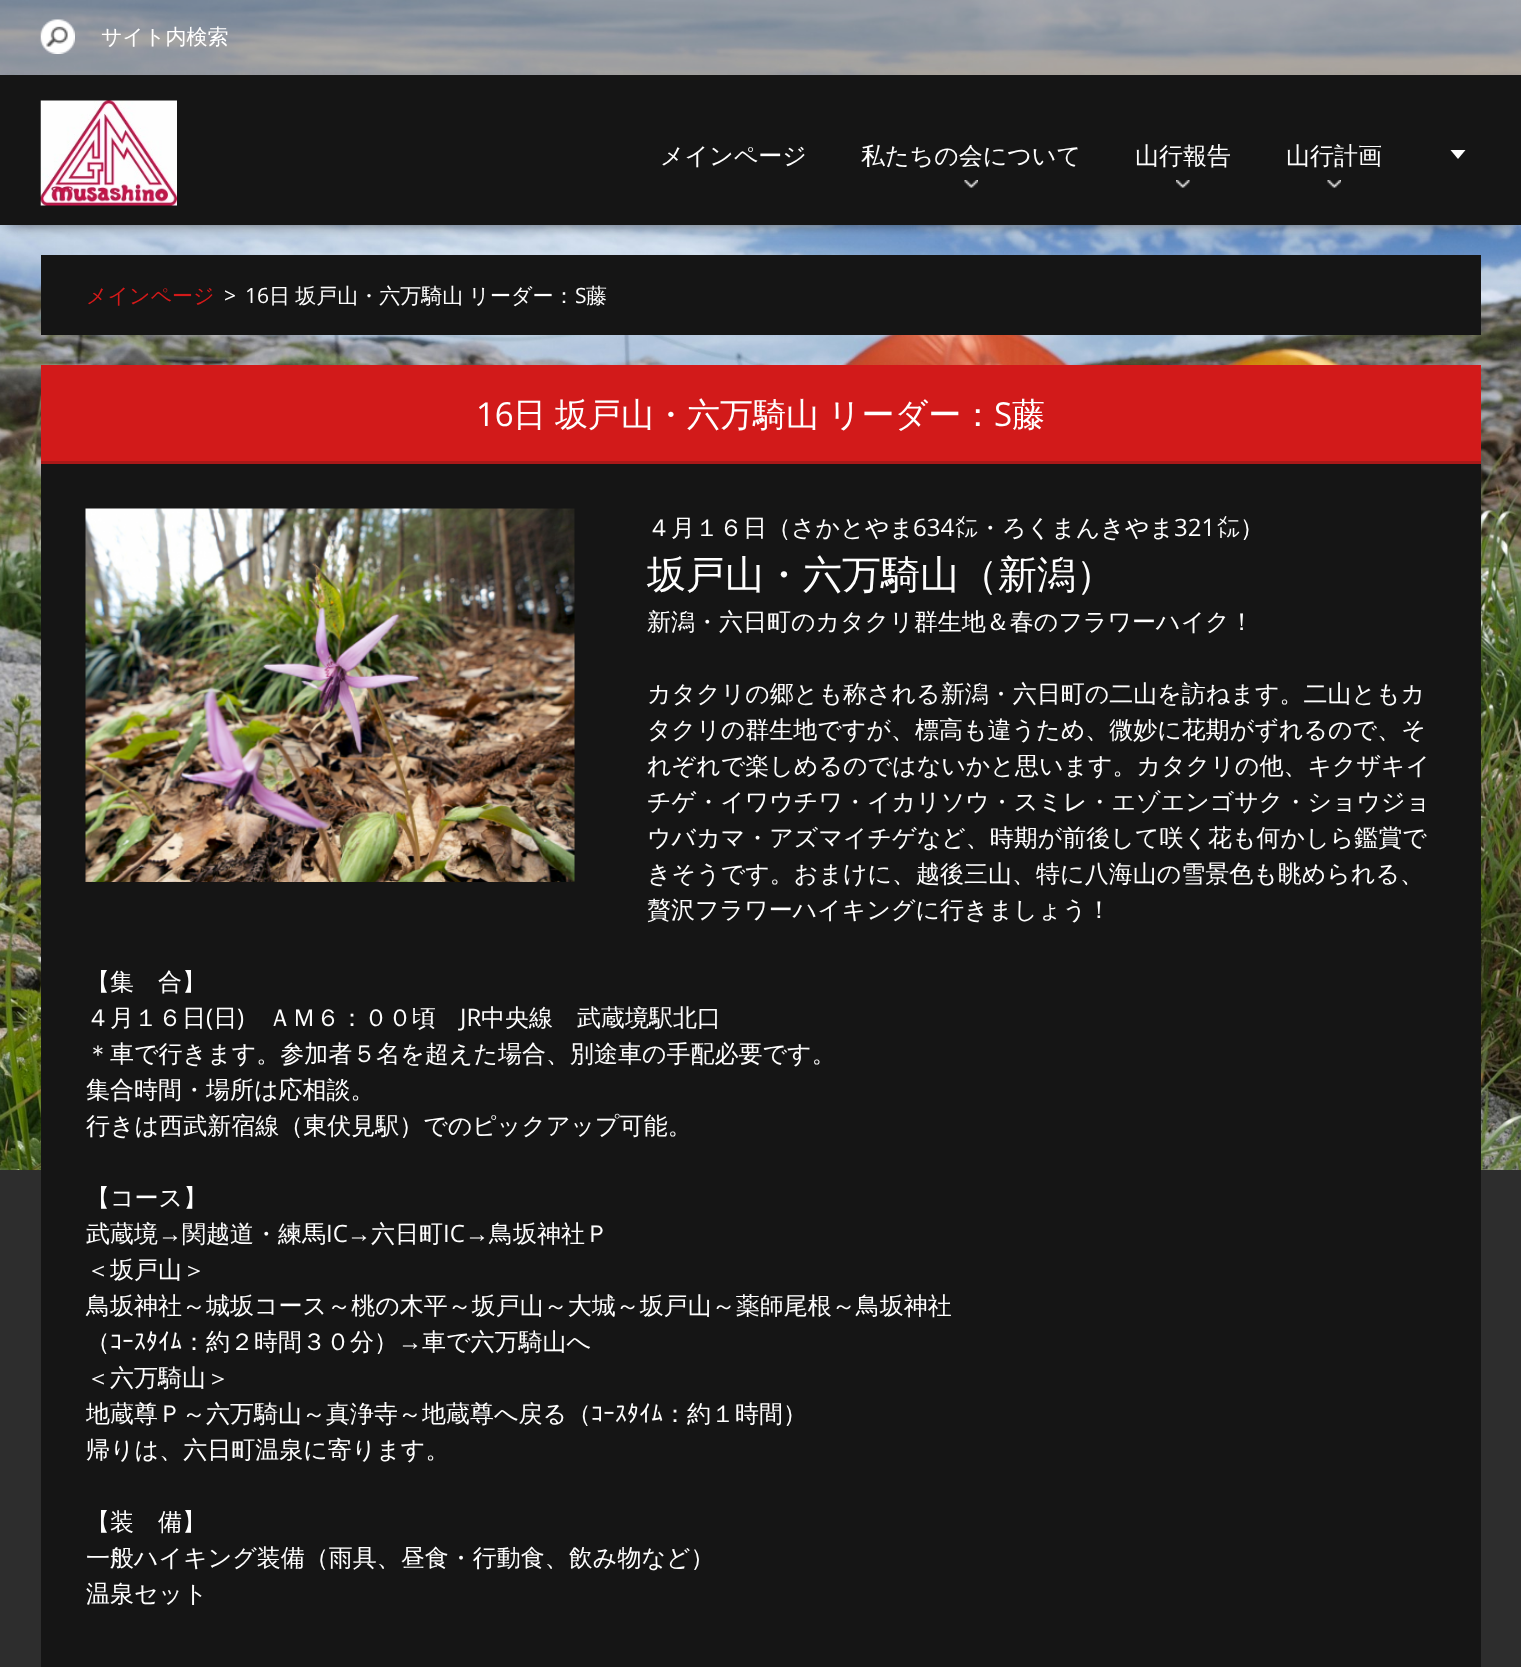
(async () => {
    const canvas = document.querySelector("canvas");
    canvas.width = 1521;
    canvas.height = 1667;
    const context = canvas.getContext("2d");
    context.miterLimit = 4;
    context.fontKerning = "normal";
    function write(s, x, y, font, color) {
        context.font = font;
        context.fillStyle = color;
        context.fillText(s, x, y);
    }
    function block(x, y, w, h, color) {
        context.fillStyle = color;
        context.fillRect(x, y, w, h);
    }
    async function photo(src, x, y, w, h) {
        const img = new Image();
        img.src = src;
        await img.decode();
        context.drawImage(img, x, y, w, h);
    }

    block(0, 0, 1521, 1667, "rgb(45, 45, 45)");
    await photo("media/1.png", 0, 0, 1521, 1170);
    block(0, 0, 1521, 75, "rgba(53, 53, 53, 0.4)");
    await photo("media/2.png", 40, 19, 35, 35);
    write("サイト内検索", 101, 44, "500 21px WenQuanYi Zen Hei", "rgb(255, 255, 255)");
    context.fillStyle = "rgb(53, 53, 53)";
    context.filter = "blur(7.5px)";
    context.beginPath();
    context.rect(9, 90, 1503, 132);
    context.fill();
    context.filter = "none";
    block(0, 75, 1521, 150, "rgb(21, 21, 21)");
    await photo("media/3.png", 40, 100, 137, 106);
    write("メインページ", 660, 164, "500 24px WenQuanYi Zen Hei", "rgb(255, 255, 255)");
    write("私たちの会について", 861, 164, "500 24px WenQuanYi Zen Hei", "rgb(255, 255, 255)");
    await photo("media/4.png", 964, 180, 14, 8);
    write("山行報告", 1135, 164, "500 24px WenQuanYi Zen Hei", "rgb(255, 255, 255)");
    await photo("media/5.png", 1176, 180, 14, 8);
    write("山行計画", 1286, 164, "500 24px WenQuanYi Zen Hei", "rgb(255, 255, 255)");
    await photo("media/6.png", 1327, 180, 14, 8);
    context.beginPath();
    context.moveTo(1450.5, 150);
    context.lineTo(1465.5, 150);
    context.lineTo(1458, 159);
    context.closePath();
    context.fill();
    block(41, 255, 1440, 80, "rgb(21, 21, 21)");
    write("メインページ", 86, 303, "500 21px WenQuanYi Zen Hei", "rgb(210, 26, 26)");
    write(">", 224, 303, "21px Open Sans", "rgb(255, 255, 255)");
    write("16", 245, 303, "21px Open Sans", "rgb(255, 255, 255)");
    context.wordSpacing = "-1px";
    write("日 坂戸山・六万騎山 リーダー：", 269, 303, "500 21px WenQuanYi Zen Hei", "rgb(255, 255, 255)");
    context.wordSpacing = "0px";
    write("S", 575, 303, "21px Open Sans", "rgb(255, 255, 255)");
    write("藤", 586, 303, "500 21px WenQuanYi Zen Hei", "rgb(255, 255, 255)");
    block(41, 464, 1440, 1203, "rgb(21, 21, 21)");
    block(41, 365, 1440, 96, "rgb(210, 26, 26)");
    block(41, 461, 1440, 3, "rgb(169, 25, 25)");
    write("16", 476, 426, "33px Open Sans", "rgb(255, 255, 255)");
    context.wordSpacing = "-1px";
    write("日 坂戸山・六万騎山 リーダー：", 513, 426, "500 33px WenQuanYi Zen Hei", "rgb(255, 255, 255)");
    context.wordSpacing = "0px";
    write("S", 994, 426, "33px Open Sans", "rgb(255, 255, 255)");
    write("藤", 1012, 426, "500 33px WenQuanYi Zen Hei", "rgb(255, 255, 255)");
    await photo("media/7.png", 85, 508, 490, 374);
    write("４月１６日（さかとやま", 647, 536, "500 24px WenQuanYi Zen Hei", "rgb(255, 255, 255)");
    write("634", 913, 536, "24px Open Sans", "rgb(255, 255, 255)");
    write("㍍", 954, 536, "24px IPAPGothic", "rgb(255, 255, 255)");
    write("・ろくまんきやま", 978, 536, "500 24px WenQuanYi Zen Hei", "rgb(255, 255, 255)");
    write("321", 1174, 536, "24px Open Sans", "rgb(255, 255, 255)");
    write("㍍", 1216, 536, "24px IPAPGothic", "rgb(255, 255, 255)");
    write("）", 1240, 536, "500 24px WenQuanYi Zen Hei", "rgb(255, 255, 255)");
    write("坂戸山・六万騎山（新潟）", 647, 588, "500 39px WenQuanYi Zen Hei", "rgb(255, 255, 255)");
    write("新潟・六日町のカタクリ群生地＆春のフラワーハイク！", 647, 630, "500 24px WenQuanYi Zen Hei", "rgb(255, 255, 255)");
    write("カタクリの郷とも称される新潟・六日町の二山を訪ねます。二山ともカ", 647, 702, "500 24px WenQuanYi Zen Hei", "rgb(255, 255, 255)");
    write("タクリの群生地ですが、標高も違うため、微妙に花期がずれるので、そ", 647, 738, "500 24px WenQuanYi Zen Hei", "rgb(255, 255, 255)");
    write("れぞれで楽しめるのではないかと思います。カタクリの他、キクザキイ", 647, 774, "500 24px WenQuanYi Zen Hei", "rgb(255, 255, 255)");
    write("チゲ・イワウチワ・イカリソウ・スミレ・エゾエンゴサク・ショウジョ", 647, 810, "500 24px WenQuanYi Zen Hei", "rgb(255, 255, 255)");
    write("ウバカマ・アズマイチゲなど、時期が前後して咲く花も何かしら鑑賞で", 647, 846, "500 24px WenQuanYi Zen Hei", "rgb(255, 255, 255)");
    write("きそうです。おまけに、越後三山、特に八海山の雪景色も眺められる、", 647, 882, "500 24px WenQuanYi Zen Hei", "rgb(255, 255, 255)");
    write("贅沢フラワーハイキングに行きましょう！", 647, 918, "500 24px WenQuanYi Zen Hei", "rgb(255, 255, 255)");
    write("【集　合】", 86, 990, "500 24px WenQuanYi Zen Hei", "rgb(255, 255, 255)");
    write("４月１６日 日", 86, 1026, "500 24px WenQuanYi Zen Hei", "rgb(255, 255, 255)");
    write("ＡＭ６：００頃", 268, 1026, "500 24px WenQuanYi Zen Hei", "rgb(255, 255, 255)");
    write("中央線　武蔵境駅北口", 481, 1026, "500 24px WenQuanYi Zen Hei", "rgb(255, 255, 255)");
    write("(", 206, 1026, "24px Open Sans", "rgb(255, 255, 255)");
    write(")", 237, 1026, "24px Open Sans", "rgb(255, 255, 255)");
    write("JR", 460, 1026, "24px Open Sans", "rgb(255, 255, 255)");
    write("＊車で行きます。参加者５名を超えた場合、別途車の手配必要です。", 86, 1062, "500 24px WenQuanYi Zen Hei", "rgb(255, 255, 255)");
    write("集合時間・場所は応相談。", 86, 1098, "500 24px WenQuanYi Zen Hei", "rgb(255, 255, 255)");
    write("行きは西武新宿線（東伏見駅）でのピックアップ可能。", 86, 1134, "500 24px WenQuanYi Zen Hei", "rgb(255, 255, 255)");
    write("【コース】", 86, 1206, "500 24px WenQuanYi Zen Hei", "rgb(255, 255, 255)");
    write("武蔵境", 86, 1242, "500 24px WenQuanYi Zen Hei", "rgb(255, 255, 255)");
    write("→", 158, 1242, "24px Liberation Sans", "rgb(255, 255, 255)");
    write("関越道・練馬", 182, 1242, "500 24px WenQuanYi Zen Hei", "rgb(255, 255, 255)");
    write("IC", 326, 1242, "24px Open Sans", "rgb(255, 255, 255)");
    write("→", 347, 1242, "24px Liberation Sans", "rgb(255, 255, 255)");
    write("六日町", 371, 1242, "500 24px WenQuanYi Zen Hei", "rgb(255, 255, 255)");
    write("IC", 443, 1242, "24px Open Sans", "rgb(255, 255, 255)");
    write("→", 465, 1242, "24px Liberation Sans", "rgb(255, 255, 255)");
    write("鳥坂神社Ｐ", 489, 1242, "500 24px WenQuanYi Zen Hei", "rgb(255, 255, 255)");
    write("＜坂戸山＞", 86, 1278, "500 24px WenQuanYi Zen Hei", "rgb(255, 255, 255)");
    write("鳥坂神社～城坂コース～桃の木平～坂戸山～大城～坂戸山～薬師尾根～鳥坂神社", 86, 1314, "500 24px WenQuanYi Zen Hei", "rgb(255, 255, 255)");
    write("（", 86, 1350, "500 24px WenQuanYi Zen Hei", "rgb(255, 255, 255)");
    write("ｺｰｽﾀｲﾑ", 110, 1350, "24px IPAPGothic", "rgb(255, 255, 255)");
    write("：約２時間３０分）", 182, 1350, "500 24px WenQuanYi Zen Hei", "rgb(255, 255, 255)");
    write("→", 398, 1350, "24px Liberation Sans", "rgb(255, 255, 255)");
    write("車で六万騎山へ", 422, 1350, "500 24px WenQuanYi Zen Hei", "rgb(255, 255, 255)");
    write("＜六万騎山＞", 86, 1386, "500 24px WenQuanYi Zen Hei", "rgb(255, 255, 255)");
    write("地蔵尊Ｐ～六万騎山～真浄寺～地蔵尊へ戻る（", 86, 1422, "500 24px WenQuanYi Zen Hei", "rgb(255, 255, 255)");
    write("ｺｰｽﾀｲﾑ", 591, 1422, "24px IPAPGothic", "rgb(255, 255, 255)");
    write("：約１時間）", 663, 1422, "500 24px WenQuanYi Zen Hei", "rgb(255, 255, 255)");
    write("帰りは、六日町温泉に寄ります。", 86, 1458, "500 24px WenQuanYi Zen Hei", "rgb(255, 255, 255)");
    write("【装　備】", 86, 1530, "500 24px WenQuanYi Zen Hei", "rgb(255, 255, 255)");
    write("一般ハイキング装備（雨具、昼食・行動食、飲み物など）", 86, 1566, "500 24px WenQuanYi Zen Hei", "rgb(255, 255, 255)");
    write("温泉セット", 86, 1602, "500 24px WenQuanYi Zen Hei", "rgb(255, 255, 255)");
})();
